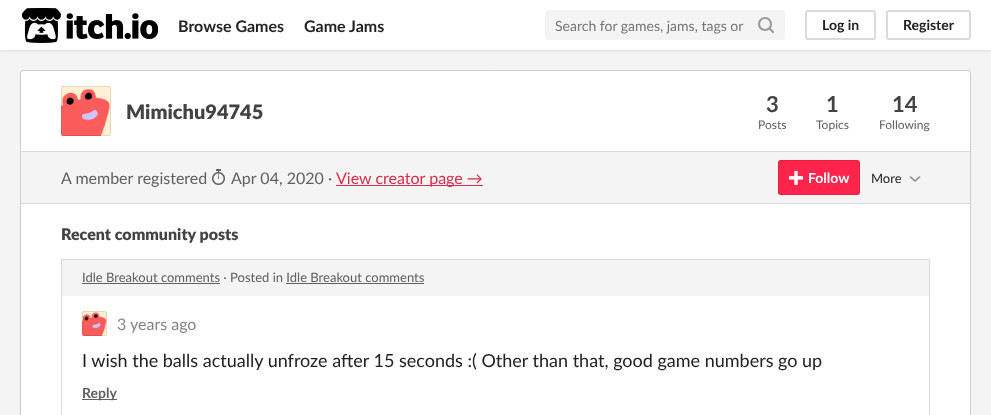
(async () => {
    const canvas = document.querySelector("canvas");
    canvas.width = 991;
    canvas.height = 415;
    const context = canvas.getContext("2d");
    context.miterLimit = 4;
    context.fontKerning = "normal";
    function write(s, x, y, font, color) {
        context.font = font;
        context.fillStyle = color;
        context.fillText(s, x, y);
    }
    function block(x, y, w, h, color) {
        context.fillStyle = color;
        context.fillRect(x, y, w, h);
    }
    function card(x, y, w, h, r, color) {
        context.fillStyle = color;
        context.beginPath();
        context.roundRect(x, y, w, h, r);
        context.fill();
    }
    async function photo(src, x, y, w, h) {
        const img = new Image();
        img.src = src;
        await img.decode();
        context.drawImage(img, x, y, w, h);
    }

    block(0, 0, 991, 415, "rgb(244, 244, 244)");
    context.fillStyle = "rgba(0, 0, 0, 0.1)";
    context.filter = "blur(1px)";
    context.beginPath();
    context.rect(0, 1, 991, 50);
    context.fill();
    context.filter = "none";
    block(0, 0, 991, 50, "rgb(255, 255, 255)");
    await photo("media/1.png", 22, 8, 136, 35);
    write("Browse Games", 178, 32, "bold 16px Lato", "rgb(34, 34, 34)");
    write("Game Jams", 304, 32, "bold 16px Lato", "rgb(34, 34, 34)");
    card(545, 10, 240, 30, 3, "rgb(244, 244, 244)");
    write("Search for games, jams, tags or", 555, 31, "14px Lato", "rgb(117, 117, 117)");
    context.beginPath();
    context.arc(765, 24, 6, 0, Math.PI * 2);
    context.strokeStyle = "rgb(156, 156, 156)";
    context.lineWidth = 2.2;
    context.stroke();
    context.beginPath();
    context.moveTo(773, 32);
    context.lineTo(769.5, 28.5);
    context.lineCap = "round";
    context.lineJoin = "round";
    context.stroke();
    context.beginPath();
    context.roundRect(806, 11, 69, 28, 2);
    context.strokeStyle = "rgb(218, 218, 218)";
    context.lineWidth = 2;
    context.lineJoin = "miter";
    context.stroke();
    write("Log in", 822, 30, "bold 14px Lato", "rgb(34, 34, 34)");
    context.beginPath();
    context.roundRect(887, 11, 83, 28, 2);
    context.stroke();
    write("Register", 903, 30, "bold 14px Lato", "rgb(34, 34, 34)");
    context.fillStyle = "rgb(255, 255, 255)";
    context.beginPath();
    context.roundRect(20.5, 70.5, 950, 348, 2.5);
    context.fill();
    context.strokeStyle = "rgb(205, 205, 205)";
    context.lineWidth = 1;
    context.stroke();
    block(21, 151, 949, 1, "rgb(218, 218, 218)");
    await photo("media/2.png", 61, 86, 50, 50);
    context.beginPath();
    context.roundRect(61.5, 86.5, 49, 49, 1.5);
    context.strokeStyle = "rgba(0, 0, 0, 0.1)";
    context.stroke();
    write("Mimichu94745", 126, 119, "900 20px Lato", "rgb(67, 67, 67)");
    write("3", 766, 112, "bold 22px Lato", "rgb(67, 67, 67)");
    write("Posts", 758, 129, "12px Lato", "rgb(96, 96, 96)");
    write("1", 826, 112, "bold 22px Lato", "rgb(67, 67, 67)");
    write("Topics", 816, 129, "12px Lato", "rgb(96, 96, 96)");
    write("14", 892, 112, "bold 22px Lato", "rgb(67, 67, 67)");
    write("Following", 879, 129, "12px Lato", "rgb(96, 96, 96)");
    block(21, 152, 949, 51, "rgb(244, 244, 244)");
    block(21, 203, 949, 1, "rgb(218, 218, 218)");
    write("A member registered", 61, 184, "16px Lato", "rgb(96, 96, 96)");
    await photo("media/3.png", 212, 169, 13, 16);
    write("Apr 04, 2020", 231, 184, "16px Lato", "rgb(96, 96, 96)");
    write("·", 328, 184, "16px Lato", "rgb(96, 96, 96)");
    block(336, 185, 147, 1, "rgb(218, 44, 73)");
    write("View creator page →", 336, 184, "16px Lato", "rgb(218, 44, 73)");
    card(778, 160, 82, 35, 3, "rgb(255, 36, 73)");
    context.beginPath();
    context.roundRect(778.5, 160.5, 81, 34, 2.5);
    context.stroke();
    await photo("media/4.png", 789, 170, 14, 15);
    write("Follow", 808, 183, "bold 14px Lato", "rgb(255, 255, 255)");
    write("More", 871, 183, "13px Lato", "rgb(34, 34, 34)");
    context.beginPath();
    context.moveTo(910.5, 177);
    context.lineTo(915, 181);
    context.lineTo(919.5, 177);
    context.strokeStyle = "rgb(133, 133, 133)";
    context.lineWidth = 1.5;
    context.lineJoin = "round";
    context.stroke();
    write("Recent community posts", 61, 240, "900 16px Lato", "rgb(67, 67, 67)");
    context.strokeStyle = "rgb(218, 218, 218)";
    context.lineWidth = 1;
    context.lineJoin = "miter";
    context.strokeRect(61.5, 259.5, 868, 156);
    block(62, 260, 867, 36, "rgb(244, 244, 244)");
    write("Idle Breakout comments · Posted in Idle Breakout comments", 82, 282, "13px Lato", "rgb(96, 96, 96)");
    block(82, 283, 138, 1, "rgb(96, 96, 96)");
    block(286, 283, 138, 1, "rgb(96, 96, 96)");
    await photo("media/5.png", 82, 311, 25, 25);
    context.beginPath();
    context.roundRect(82.5, 311.5, 24, 24, 1.5);
    context.strokeStyle = "rgba(0, 0, 0, 0.1)";
    context.stroke();
    write("3 years ago", 117, 330, "16px Lato", "rgb(133, 133, 133)");
    write("I wish the balls actually unfroze after 15 seconds :( Other than that, good game numbers go up", 82, 367, "18px Lato", "rgb(34, 34, 34)");
    block(82, 399, 35, 1, "rgb(96, 96, 96)");
    write("Reply", 82, 398, "bold 14px Lato", "rgb(96, 96, 96)");
})();
